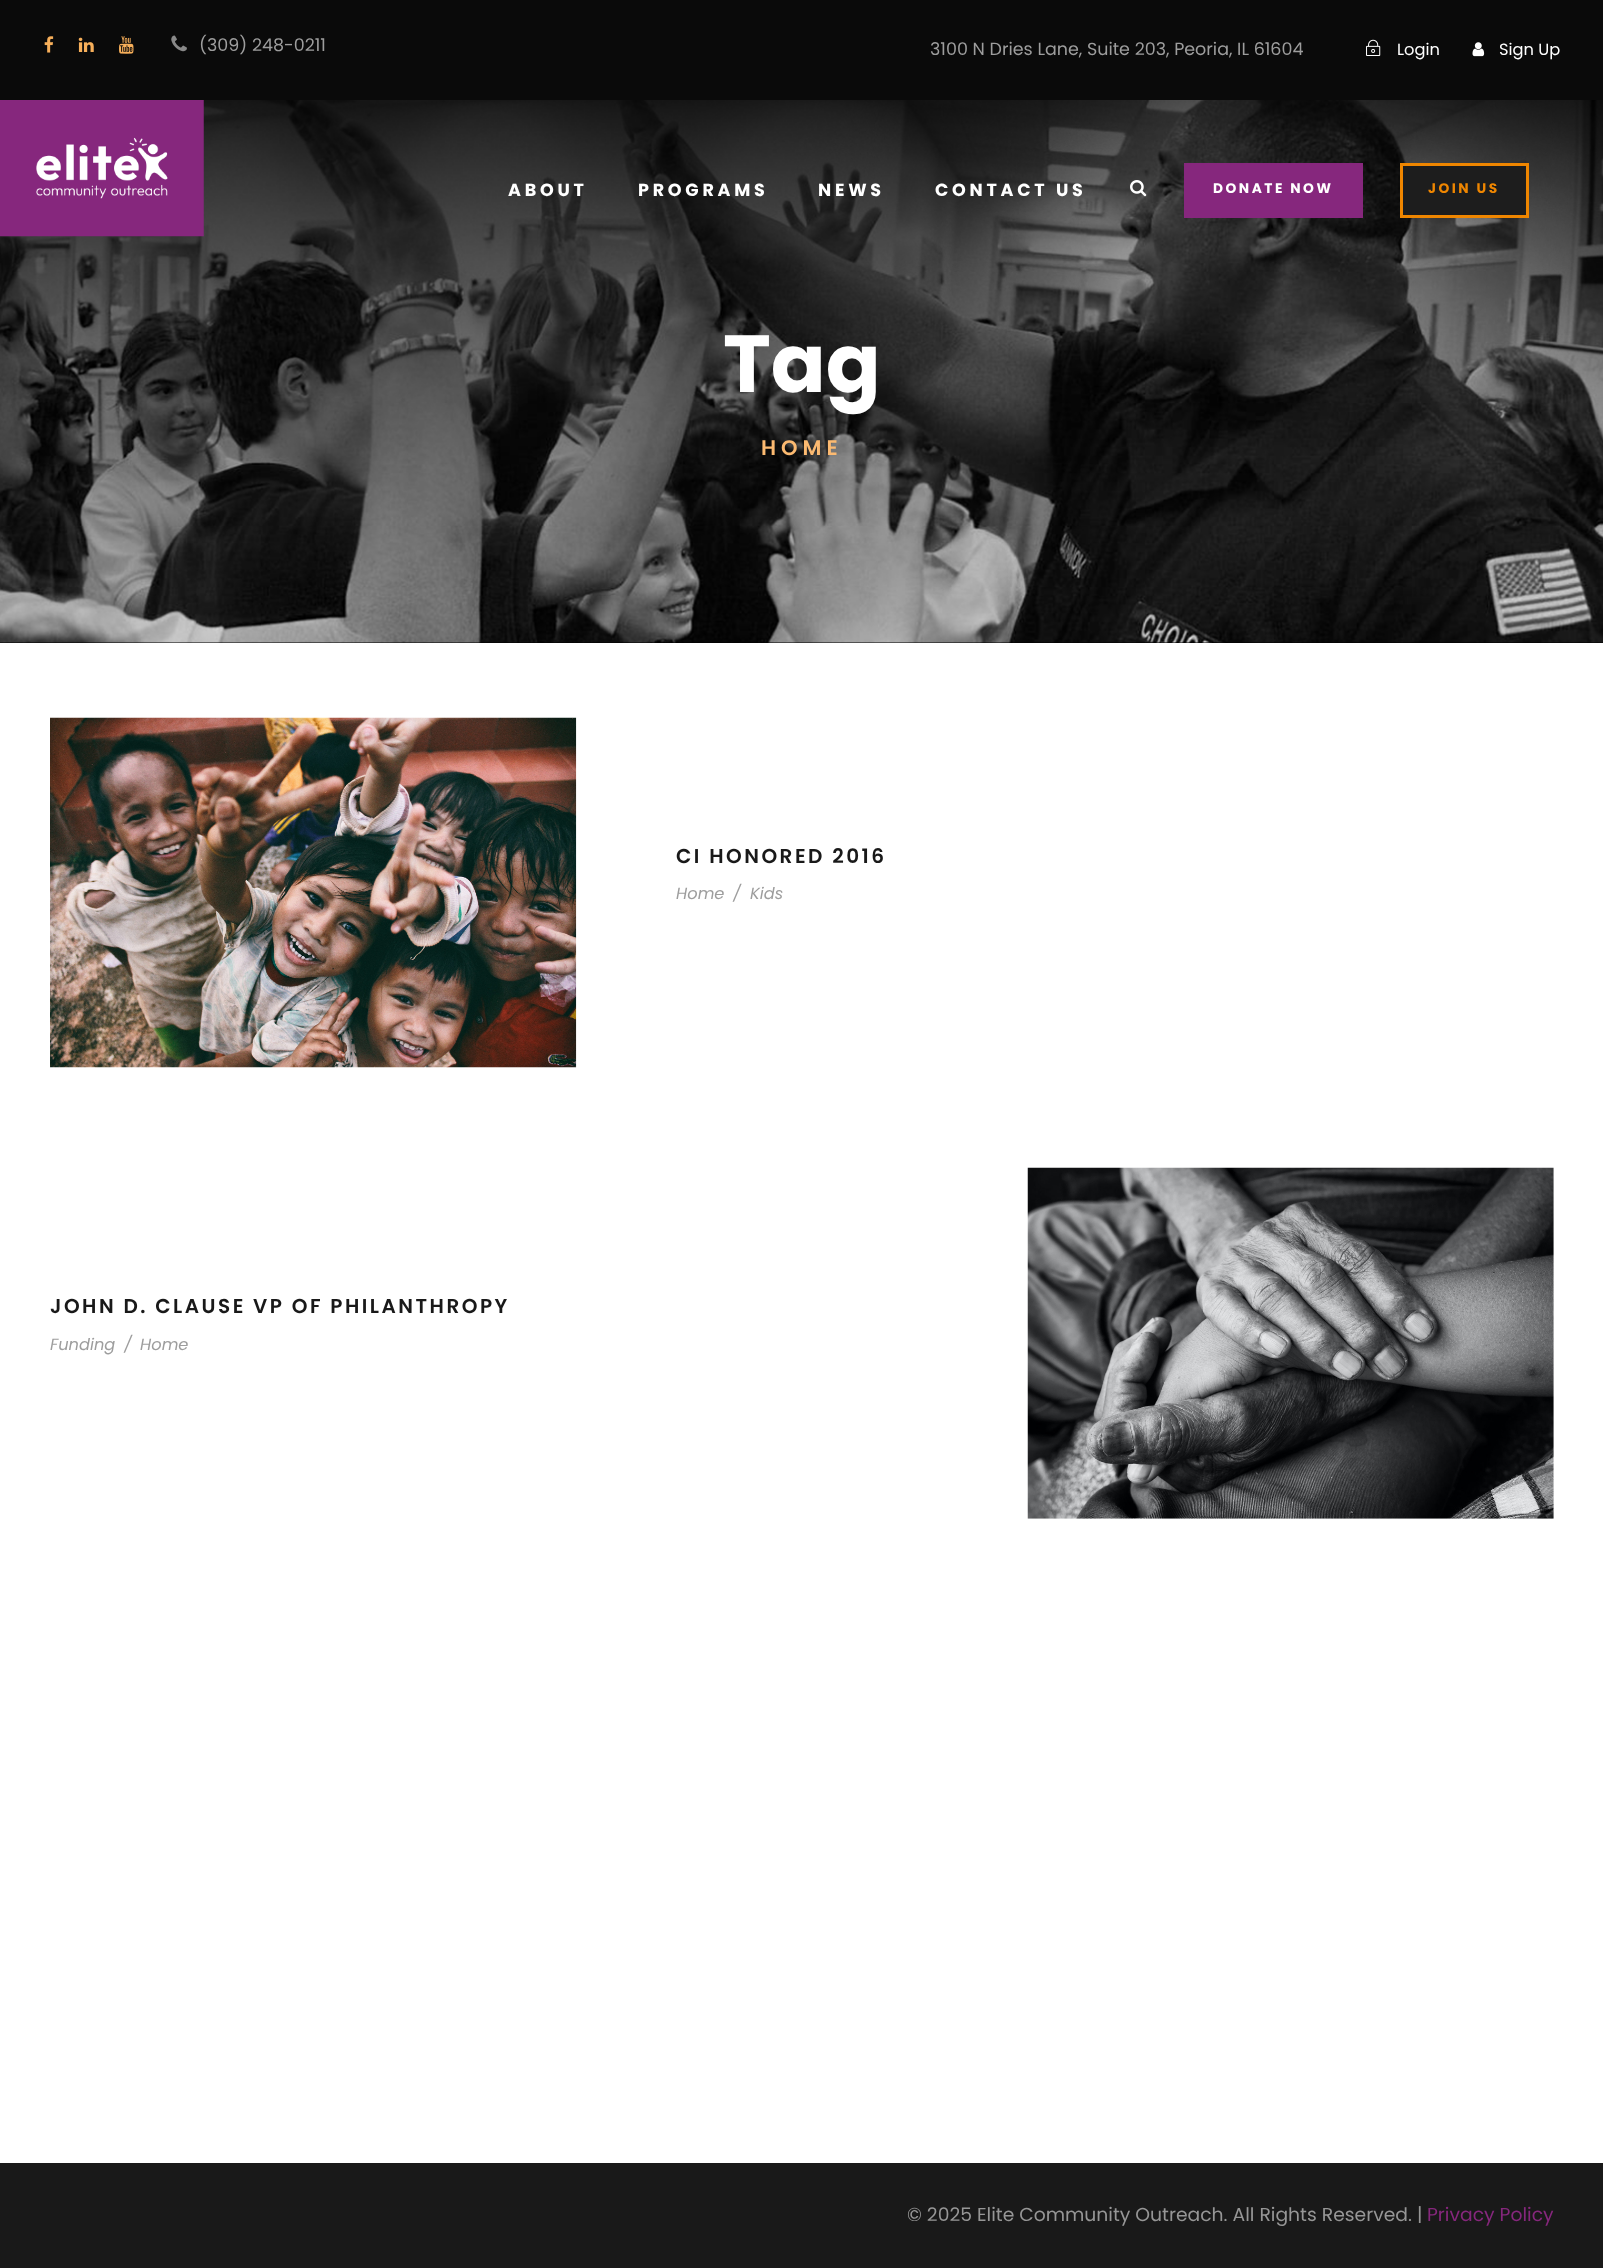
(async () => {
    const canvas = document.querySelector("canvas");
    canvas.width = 1603;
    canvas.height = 2268;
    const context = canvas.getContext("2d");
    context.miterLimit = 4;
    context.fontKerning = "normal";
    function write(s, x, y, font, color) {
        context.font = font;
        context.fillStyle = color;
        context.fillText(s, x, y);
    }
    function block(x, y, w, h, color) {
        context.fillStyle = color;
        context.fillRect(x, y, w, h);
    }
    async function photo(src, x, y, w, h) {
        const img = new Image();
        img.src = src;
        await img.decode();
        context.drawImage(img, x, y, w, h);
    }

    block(0, 0, 1603, 2268, "rgb(255, 255, 255)");
    block(0, 0, 1603, 100, "rgb(10, 10, 10)");
    await photo("media/1.png", 44, 36, 10, 17);
    await photo("media/2.png", 78, 37, 16, 15);
    await photo("media/3.png", 119, 36, 15, 18);
    await photo("media/4.png", 171, 35, 16, 17);
    write("(309) 248-0211", 199, 51, "17.5px Poppins", "rgb(157, 157, 157)");
    write("3100 N Dries Lane, Suite 203, Peoria, IL 61604", 930, 55, "17.5px Poppins", "rgb(157, 157, 157)");
    await photo("media/5.png", 1366, 39, 15, 17);
    write("Login", 1397, 55, "16.25px Poppins", "rgb(255, 255, 255)");
    await photo("media/6.png", 1472, 42, 13, 15);
    write("Sign Up", 1499, 55, "16.25px Poppins", "rgb(255, 255, 255)");
    block(0, 642, 1603, 1, "rgb(0, 0, 0)");
    await photo("media/9.png", 0, 100, 1603, 543);
    await photo("media/7.png", 0, 100, 204, 137);
    context.letterSpacing = "3.75px";
    write("ABOUT", 508, 196, "bold 17.5px Poppins", "rgb(255, 255, 255)");
    write("PROGRAMS", 638, 196, "bold 17.5px Poppins", "rgb(255, 255, 255)");
    write("NEWS", 818, 196, "bold 17.5px Poppins", "rgb(255, 255, 255)");
    write("CONTACT US", 935, 196, "bold 17.5px Poppins", "rgb(255, 255, 255)");
    await photo("media/8.png", 1130, 180, 17, 17);
    block(1184, 163, 179, 55, "rgb(134, 39, 125)");
    context.letterSpacing = "2.5px";
    write("DONATE NOW", 1213, 193, "bold 13.75px Poppins", "rgb(255, 255, 255)");
    context.fillStyle = "rgb(29, 29, 29)";
    context.beginPath();
    context.rect(1401.5, 164.5, 126, 52);
    context.fill();
    context.strokeStyle = "rgb(239, 134, 0)";
    context.lineWidth = 3;
    context.stroke();
    write("JOIN US", 1428, 193, "bold 13.75px Poppins", "rgb(239, 134, 0)");
    context.letterSpacing = "0px";
    write("Tag", 723, 392, "bold 81px Poppins", "rgb(255, 255, 255)");
    context.letterSpacing = "5px";
    write("HOME", 761, 455, "600 21px Poppins", "rgb(252, 186, 113)");
    await photo("media/10.png", 50, 717, 527, 351);
    context.letterSpacing = "2.5px";
    write("CI HONORED 2016", 676, 863, "600 20px Poppins", "rgb(25, 25, 25)");
    context.letterSpacing = "0px";
    write("Home", 676, 899, "italic 16.25px Poppins", "rgb(157, 157, 157)");
    write("/", 733, 899, "italic 16.25px Poppins", "rgb(157, 157, 157)");
    write("Kids", 750, 899, "italic 16.25px Poppins", "rgb(157, 157, 157)");
    context.letterSpacing = "2.5px";
    write("JOHN D. CLAUSE VP OF PHILANTHROPY", 50, 1313, "600 20px Poppins", "rgb(25, 25, 25)");
    context.letterSpacing = "0px";
    write("Funding", 50, 1350, "italic 16.25px Poppins", "rgb(157, 157, 157)");
    write("/", 124, 1350, "italic 16.25px Poppins", "rgb(157, 157, 157)");
    write("Home", 140, 1350, "italic 16.25px Poppins", "rgb(157, 157, 157)");
    await photo("media/11.png", 1027, 1167, 527, 352);
    block(0, 2163, 1603, 105, "rgb(25, 25, 25)");
    write("© 2025 Elite Community Outreach. All Rights Reserved. |", 907, 2221, "18.75px Poppins", "rgb(150, 150, 150)");
    write("Privacy Policy", 1427, 2221, "18.75px Poppins", "rgb(133, 39, 124)");
})();
